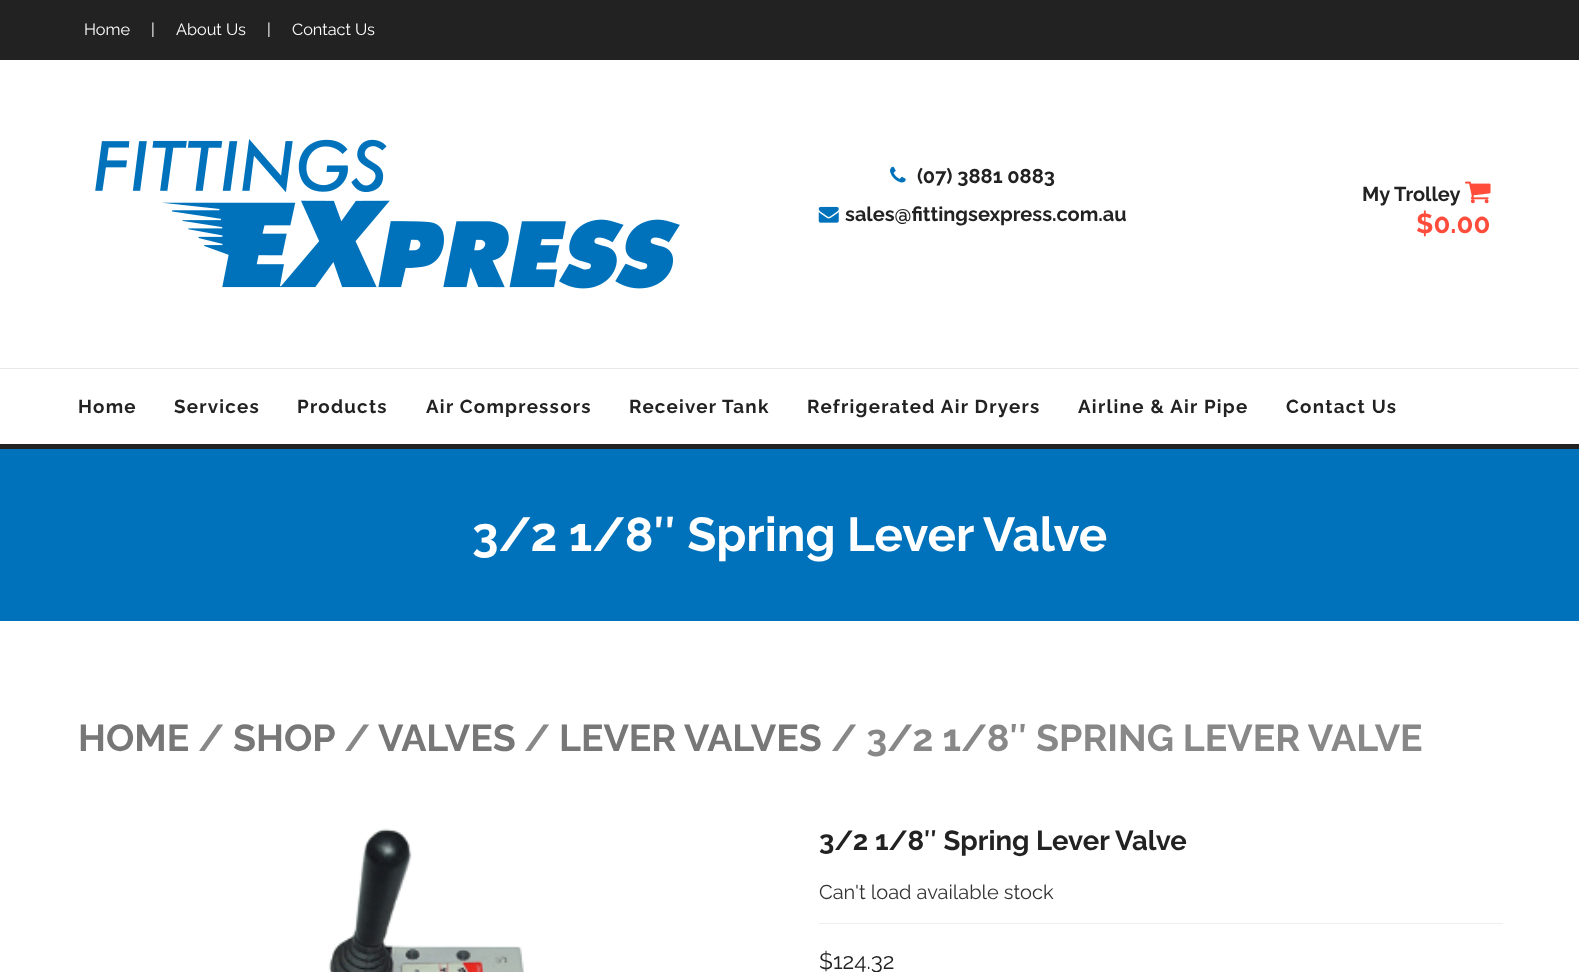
(async () => {
    const canvas = document.querySelector("canvas");
    canvas.width = 1579;
    canvas.height = 972;
    const context = canvas.getContext("2d");
    context.miterLimit = 4;
    context.fontKerning = "normal";
    function write(s, x, y, font, color) {
        context.font = font;
        context.fillStyle = color;
        context.fillText(s, x, y);
    }
    function block(x, y, w, h, color) {
        context.fillStyle = color;
        context.fillRect(x, y, w, h);
    }
    async function photo(src, x, y, w, h) {
        const img = new Image();
        img.src = src;
        await img.decode();
        context.drawImage(img, x, y, w, h);
    }

    block(0, 0, 1579, 972, "rgb(255, 255, 255)");
    block(0, 0, 1579, 60, "rgb(34, 34, 34)");
    write("Home", 84, 35, "16.25px Raleway", "rgb(255, 255, 255)");
    write("|", 151, 35, "16.25px Raleway", "rgb(255, 255, 255)");
    write("About Us", 176, 35, "16.25px Raleway", "rgb(255, 255, 255)");
    write("|", 267, 35, "16.25px Raleway", "rgb(255, 255, 255)");
    write("Contact Us", 292, 35, "16.25px Raleway", "rgb(255, 255, 255)");
    block(0, 444, 1579, 5, "rgb(34, 34, 34)");
    block(0, 368, 1579, 1, "rgb(233, 233, 233)");
    await photo("media/1.png", 95, 139, 585, 150);
    await photo("media/2.png", 890, 166, 16, 17);
    write("(07) 3881 0883", 917, 183, "bold 20px Raleway", "rgb(34, 34, 34)");
    await photo("media/3.png", 818, 206, 21, 17);
    write("sales@fittingsexpress.com.au", 845, 221, "bold 20px Raleway", "rgb(34, 34, 34)");
    write("My Trolley", 1362, 201, "bold 20px Raleway", "rgb(34, 34, 34)");
    await photo("media/4.png", 1465, 181, 26, 23);
    write("$0.00", 1416, 233, "bold 27.5px Raleway", "rgb(255, 76, 59)");
    context.letterSpacing = "1.25px";
    write("Home", 78, 413, "bold 18.75px Raleway", "rgb(34, 34, 34)");
    write("Services", 174, 413, "bold 18.75px Raleway", "rgb(34, 34, 34)");
    write("Products", 297, 413, "bold 18.75px Raleway", "rgb(34, 34, 34)");
    write("Air Compressors", 426, 413, "bold 18.75px Raleway", "rgb(34, 34, 34)");
    write("Receiver Tank", 629, 413, "bold 18.75px Raleway", "rgb(34, 34, 34)");
    write("Refrigerated Air Dryers", 807, 413, "bold 18.75px Raleway", "rgb(34, 34, 34)");
    write("Airline & Air Pipe", 1078, 413, "bold 18.75px Raleway", "rgb(34, 34, 34)");
    write("Contact Us", 1286, 413, "bold 18.75px Raleway", "rgb(34, 34, 34)");
    block(0, 449, 1579, 172, "rgb(0, 114, 187)");
    context.letterSpacing = "0px";
    write("3/2 1/8″ Spring Lever Valve", 472, 551, "bold 47.5px Raleway", "rgb(255, 255, 255)");
    write("HOME", 78, 751, "bold 37.5px Raleway", "rgb(119, 119, 119)");
    write("/", 198, 751, "bold 37.5px Raleway", "rgb(136, 136, 136)");
    write("SHOP", 233, 751, "bold 37.5px Raleway", "rgb(119, 119, 119)");
    write("/", 344, 751, "bold 37.5px Raleway", "rgb(136, 136, 136)");
    write("VALVES", 378, 751, "bold 37.5px Raleway", "rgb(119, 119, 119)");
    write("/", 524, 751, "bold 37.5px Raleway", "rgb(136, 136, 136)");
    write("LEVER VALVES", 559, 751, "bold 37.5px Raleway", "rgb(119, 119, 119)");
    write("/ 3/2 1/8″ SPRING LEVER VALVE", 831, 751, "bold 37.5px Raleway", "rgb(136, 136, 136)");
    await photo("media/5.png", 328, 828, 196, 144);
    write("3/2 1/8″ Spring Lever Valve", 819, 850, "bold 27.5px Raleway", "rgb(34, 34, 34)");
    write("Can't load available stock", 819, 899, "20px Raleway", "rgb(51, 51, 51)");
    block(819, 923, 684, 1, "rgb(239, 239, 239)");
    write("$124.32", 819, 969, "22.5px Raleway", "rgb(34, 34, 34)");
})();
